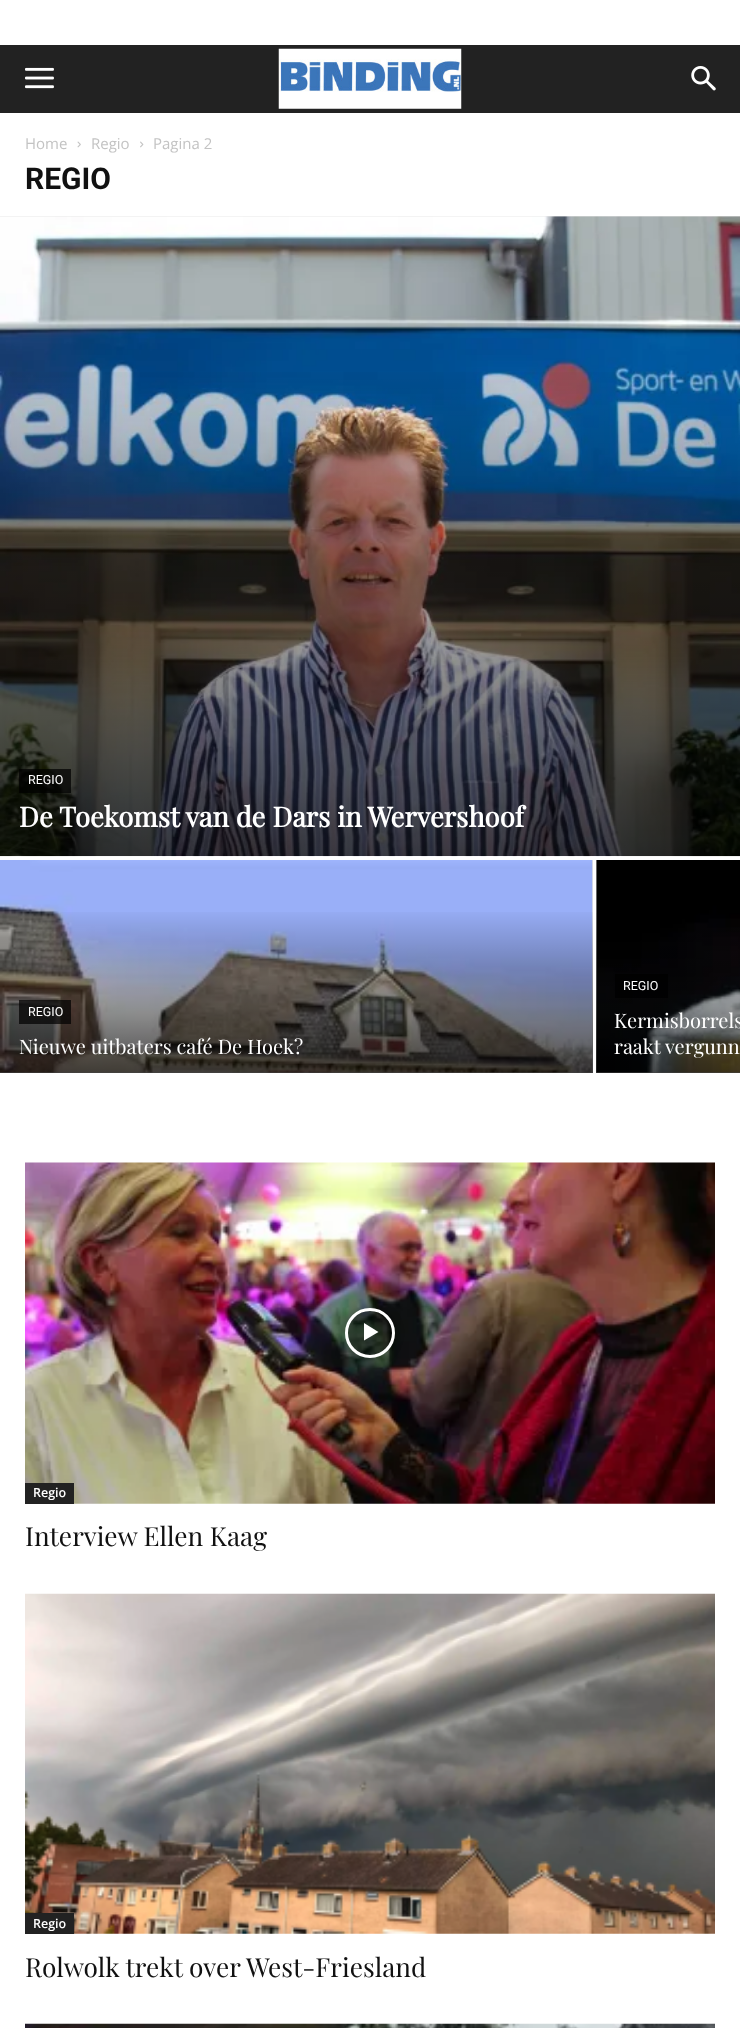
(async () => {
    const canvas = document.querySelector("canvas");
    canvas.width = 740;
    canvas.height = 2028;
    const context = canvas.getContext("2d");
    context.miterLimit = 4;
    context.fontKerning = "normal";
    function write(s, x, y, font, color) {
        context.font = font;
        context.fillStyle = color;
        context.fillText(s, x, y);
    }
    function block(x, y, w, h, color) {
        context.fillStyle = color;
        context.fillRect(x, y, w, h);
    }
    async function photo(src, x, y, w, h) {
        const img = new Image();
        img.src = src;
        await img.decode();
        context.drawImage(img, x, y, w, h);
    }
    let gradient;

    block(0, 0, 740, 2028, "rgb(255, 255, 255)");
    block(0, 45, 740, 68, "rgb(34, 34, 34)");
    await photo("media/1.png", 25, 67, 29, 22);
    await photo("media/2.png", 278, 48, 184, 61);
    await photo("media/3.png", 691, 66, 25, 25);
    write("Home", 25, 149, "15px Open Sans", "rgb(195, 195, 195)");
    await photo("media/4.png", 77, 141, 4, 7);
    write("Regio", 91, 149, "15px Open Sans", "rgb(195, 195, 195)");
    await photo("media/5.png", 140, 141, 4, 7);
    write("Pagina 2", 153, 149, "15px Open Sans", "rgb(195, 195, 195)");
    write("REGIO", 25, 189, "bold 30px Roboto", "rgb(17, 17, 17)");
    block(0, 216, 740, 1, "rgb(229, 229, 229)");
    await photo("media/6.png", 0, 216, 740, 641);
    gradient = context.createLinearGradient(370, 24, 370, 856);
    gradient.addColorStop(0.4, "rgba(0, 0, 0, 0)");
    gradient.addColorStop(1, "rgba(0, 0, 0, 0.7)");
    context.fillStyle = gradient;
    context.fillRect(0, 372, 740, 484);
    block(19, 769, 52, 24, "rgba(0, 0, 0, 0.7)");
    write("REGIO", 28, 784, "12.5px Roboto", "rgb(255, 255, 255)");
    write("De Toekomst van de Dars in Wervershoof", 19, 827, "bold 27.5px Playfair Display", "rgb(255, 255, 255)");
    block(0, 860, 593, 213, "rgb(229, 229, 229)");
    await photo("media/7.png", 0, 860, 593, 213);
    gradient = context.createLinearGradient(296, 796, 296, 1073);
    gradient.addColorStop(0.4, "rgba(0, 0, 0, 0)");
    gradient.addColorStop(1, "rgba(0, 0, 0, 0.7)");
    context.fillStyle = gradient;
    context.fillRect(0, 912, 593, 161);
    block(19, 1000, 52, 24, "rgba(0, 0, 0, 0.7)");
    write("REGIO", 28, 1016, "12.5px Roboto", "rgb(255, 255, 255)");
    write("Nieuwe uitbaters café De Hoek?", 19, 1054, "20px Playfair Display", "rgb(255, 255, 255)");
    block(596, 860, 144, 213, "rgb(229, 229, 229)");
    await photo("media/8.png", 596, 860, 144, 213);
    gradient = context.createLinearGradient(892, 796, 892, 1073);
    gradient.addColorStop(0.4, "rgba(0, 0, 0, 0)");
    gradient.addColorStop(1, "rgba(0, 0, 0, 0.7)");
    context.fillStyle = gradient;
    context.fillRect(596, 913, 144, 160);
    block(615, 974, 53, 24, "rgba(0, 0, 0, 0.7)");
    write("REGIO", 623, 990, "12.5px Roboto", "rgb(255, 255, 255)");
    write("Kermisborrels", 614, 1028, "20px Playfair Display", "rgb(255, 255, 255)");
    write("raakt vergunn", 614, 1054, "20px Playfair Display", "rgb(255, 255, 255)");
    await photo("media/9.png", 25, 1162, 690, 342);
    context.save();
    context.beginPath();
    context.moveTo(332, 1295);
    context.lineTo(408, 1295);
    context.lineTo(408, 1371);
    context.lineTo(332, 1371);
    context.closePath();
    context.moveTo(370, 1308);
    context.bezierCurveTo(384, 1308, 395, 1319, 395, 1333);
    context.bezierCurveTo(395, 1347, 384, 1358, 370, 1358);
    context.bezierCurveTo(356, 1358, 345, 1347, 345, 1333);
    context.bezierCurveTo(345, 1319, 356, 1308, 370, 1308);
    context.closePath();
    context.clip("evenodd");
    context.fillStyle = "rgba(0, 0, 0, 0.4)";
    context.filter = "blur(4px)";
    context.beginPath();
    context.roundRect(345, 1308, 50, 50, 25);
    context.fill();
    context.filter = "none";
    context.restore();
    context.fillStyle = "rgba(0, 0, 0, 0.48)";
    context.beginPath();
    context.arc(370, 1333, 23.5, 0, Math.PI * 2);
    context.fill();
    context.strokeStyle = "rgb(255, 255, 255)";
    context.lineWidth = 3;
    context.stroke();
    context.fillStyle = "rgb(255, 255, 255)";
    context.beginPath();
    context.moveTo(364, 1323);
    context.lineTo(364, 1340.5);
    context.lineTo(378.5, 1332);
    context.closePath();
    context.fill();
    block(25, 1483, 49, 21, "rgb(34, 34, 34)");
    write("Regio", 33, 1497, "600 12.5px Open Sans", "rgb(255, 255, 255)");
    write("Interview Ellen Kaag", 25, 1546, "26.25px Playfair Display", "rgb(17, 17, 17)");
    await photo("media/10.png", 25, 1593, 690, 341);
    block(25, 1913, 49, 21, "rgb(34, 34, 34)");
    write("Regio", 33, 1928, "600 12.5px Open Sans", "rgb(255, 255, 255)");
    write("Rolwolk trekt over West-Friesland", 25, 1977, "26.25px Playfair Display", "rgb(17, 17, 17)");
    await photo("media/11.png", 25, 2023, 690, 5);
})();
